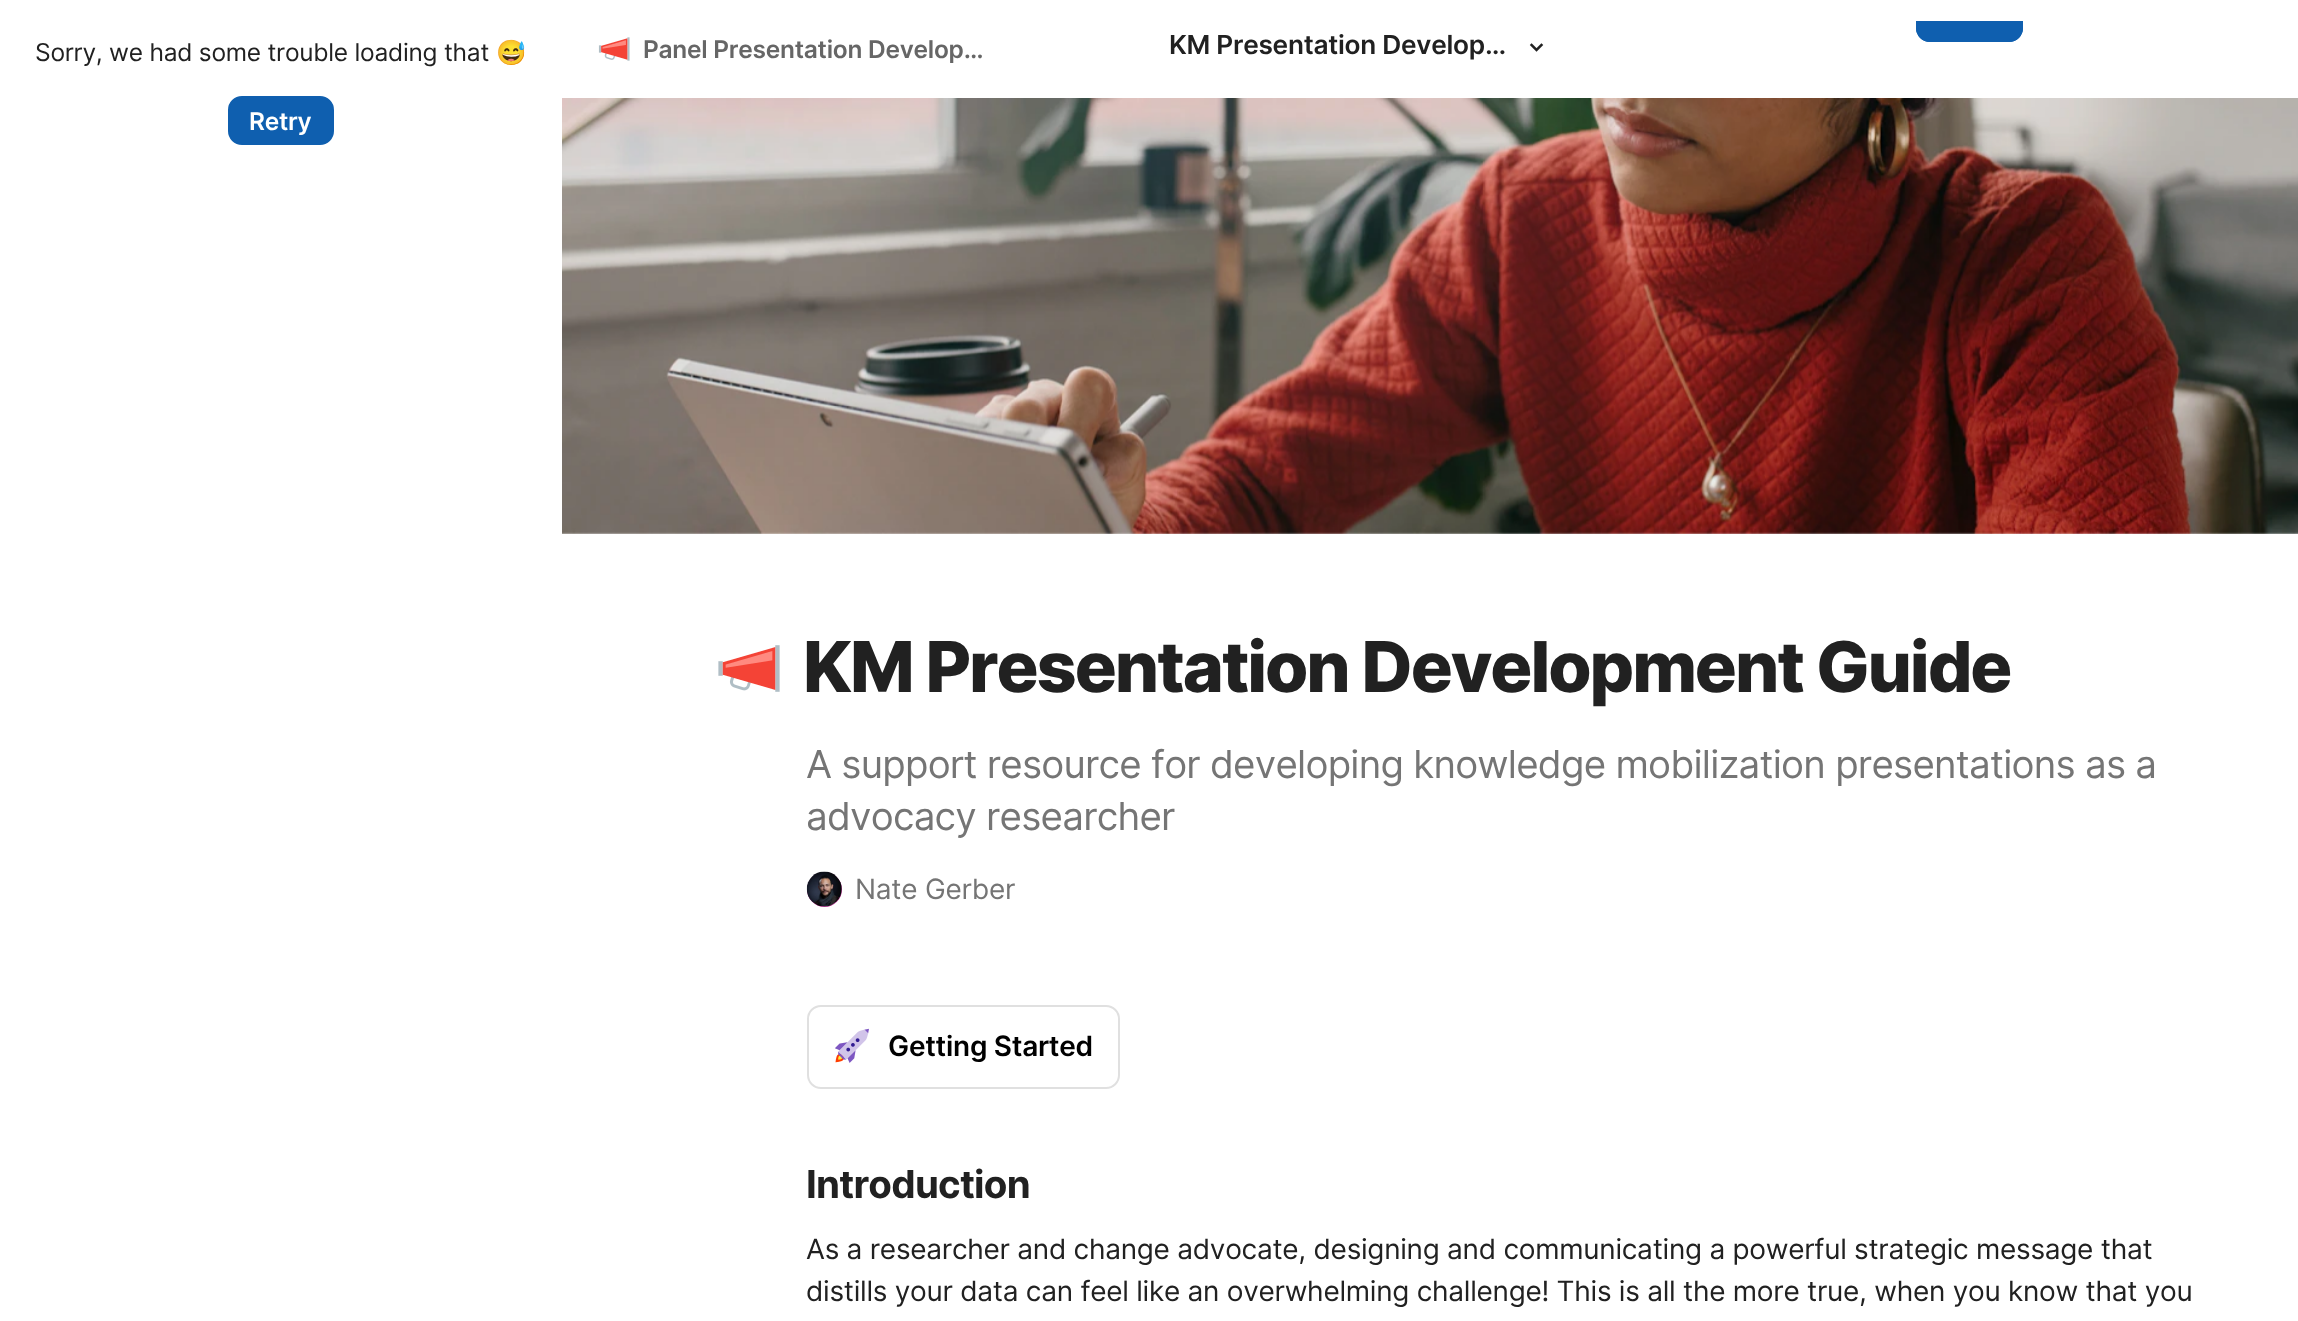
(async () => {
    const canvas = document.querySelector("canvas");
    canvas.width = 2298;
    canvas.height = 1321;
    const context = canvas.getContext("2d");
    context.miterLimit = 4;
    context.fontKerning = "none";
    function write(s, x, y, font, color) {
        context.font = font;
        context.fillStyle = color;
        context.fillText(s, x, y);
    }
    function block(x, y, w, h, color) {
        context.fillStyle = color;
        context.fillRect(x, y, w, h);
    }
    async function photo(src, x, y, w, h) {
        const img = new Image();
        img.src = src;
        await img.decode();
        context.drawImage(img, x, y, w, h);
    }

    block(0, 0, 2298, 1321, "rgb(255, 255, 255)");
    context.letterSpacing = "-0.25px";
    write("Sorry, we had some trouble loading that", 35, 61, "24.5px Inter", "rgb(33, 33, 33)");
    write("😅", 496, 61, "24.5px Noto Color Emoji", "rgb(33, 33, 33)");
    context.fillStyle = "rgb(15, 95, 175)";
    context.beginPath();
    context.roundRect(229, 97, 104, 47, 13);
    context.fill();
    context.strokeStyle = "rgb(15, 95, 175)";
    context.lineWidth = 2;
    context.stroke();
    write("Retry", 249, 130, "600 24.5px Inter", "rgb(255, 255, 255)");
    context.fillStyle = "rgb(15, 95, 175)";
    context.beginPath();
    context.roundRect(1916, 21, 107, 21, [0, 0, 14, 14]);
    context.fill();
    context.save();
    context.beginPath();
    context.rect(1671, 21, 597, 56);
    context.clip();
    context.beginPath();
    context.roundRect(1917, -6, 105, 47, 13);
    context.stroke();
    context.restore();
    await photo("media/1.png", 598, 37, 32, 24);
    write("Panel Presentation Develop…", 643, 58, "600 24.5px Inter", "rgb(102, 102, 102)");
    write("KM Presentation Develop…", 1169, 54, "600 26.25px Inter", "rgb(33, 33, 33)");
    await photo("media/2.png", 1529, 43, 15, 9);
    await photo("media/3.png", 562, 98, 1736, 436);
    await photo("media/4.png", 718, 645, 62, 47);
    context.letterSpacing = "-2.1px";
    write("KM Presentation Development Guide", 803, 692, "800 70px Inter", "rgb(33, 33, 33)");
    context.letterSpacing = "-0.77px";
    write("A support resource for developing knowledge mobilization presentations as a", 806, 778, "38.5px Inter", "rgb(117, 117, 117)");
    write("advocacy researcher", 806, 830, "38.5px Inter", "rgb(117, 117, 117)");
    context.fillStyle = "rgb(206, 66, 166)";
    context.beginPath();
    context.arc(824.5, 889.5, 17.5, 0, Math.PI * 2);
    context.fill();
    await photo("media/5.png", 806, 871, 36, 36);
    context.beginPath();
    context.arc(824.5, 889.5, 16.5, 0, Math.PI * 2);
    context.strokeStyle = "rgba(0, 0, 0, 0.08)";
    context.stroke();
    context.letterSpacing = "-0.25px";
    write("Nate Gerber", 855, 899, "28px Inter", "rgb(117, 117, 117)");
    context.beginPath();
    context.roundRect(808, 1006, 311, 82, 13);
    context.strokeStyle = "rgb(224, 224, 224)";
    context.stroke();
    await photo("media/6.png", 835, 1028, 34, 35);
    write("Getting Started", 888, 1056, "600 28px Inter", "rgb(0, 0, 0)");
    context.letterSpacing = "-0.77px";
    write("Introduction", 806, 1198, "bold 38.5px Inter", "rgb(33, 33, 33)");
    context.letterSpacing = "-0.28px";
    write("As a researcher and change advocate, designing and communicating a powerful strategic message that", 806, 1259, "28px Inter", "rgb(33, 33, 33)");
    write("distills your data can feel like an overwhelming challenge! This is all the more true, when you know that you", 806, 1301, "28px Inter", "rgb(33, 33, 33)");
})();
